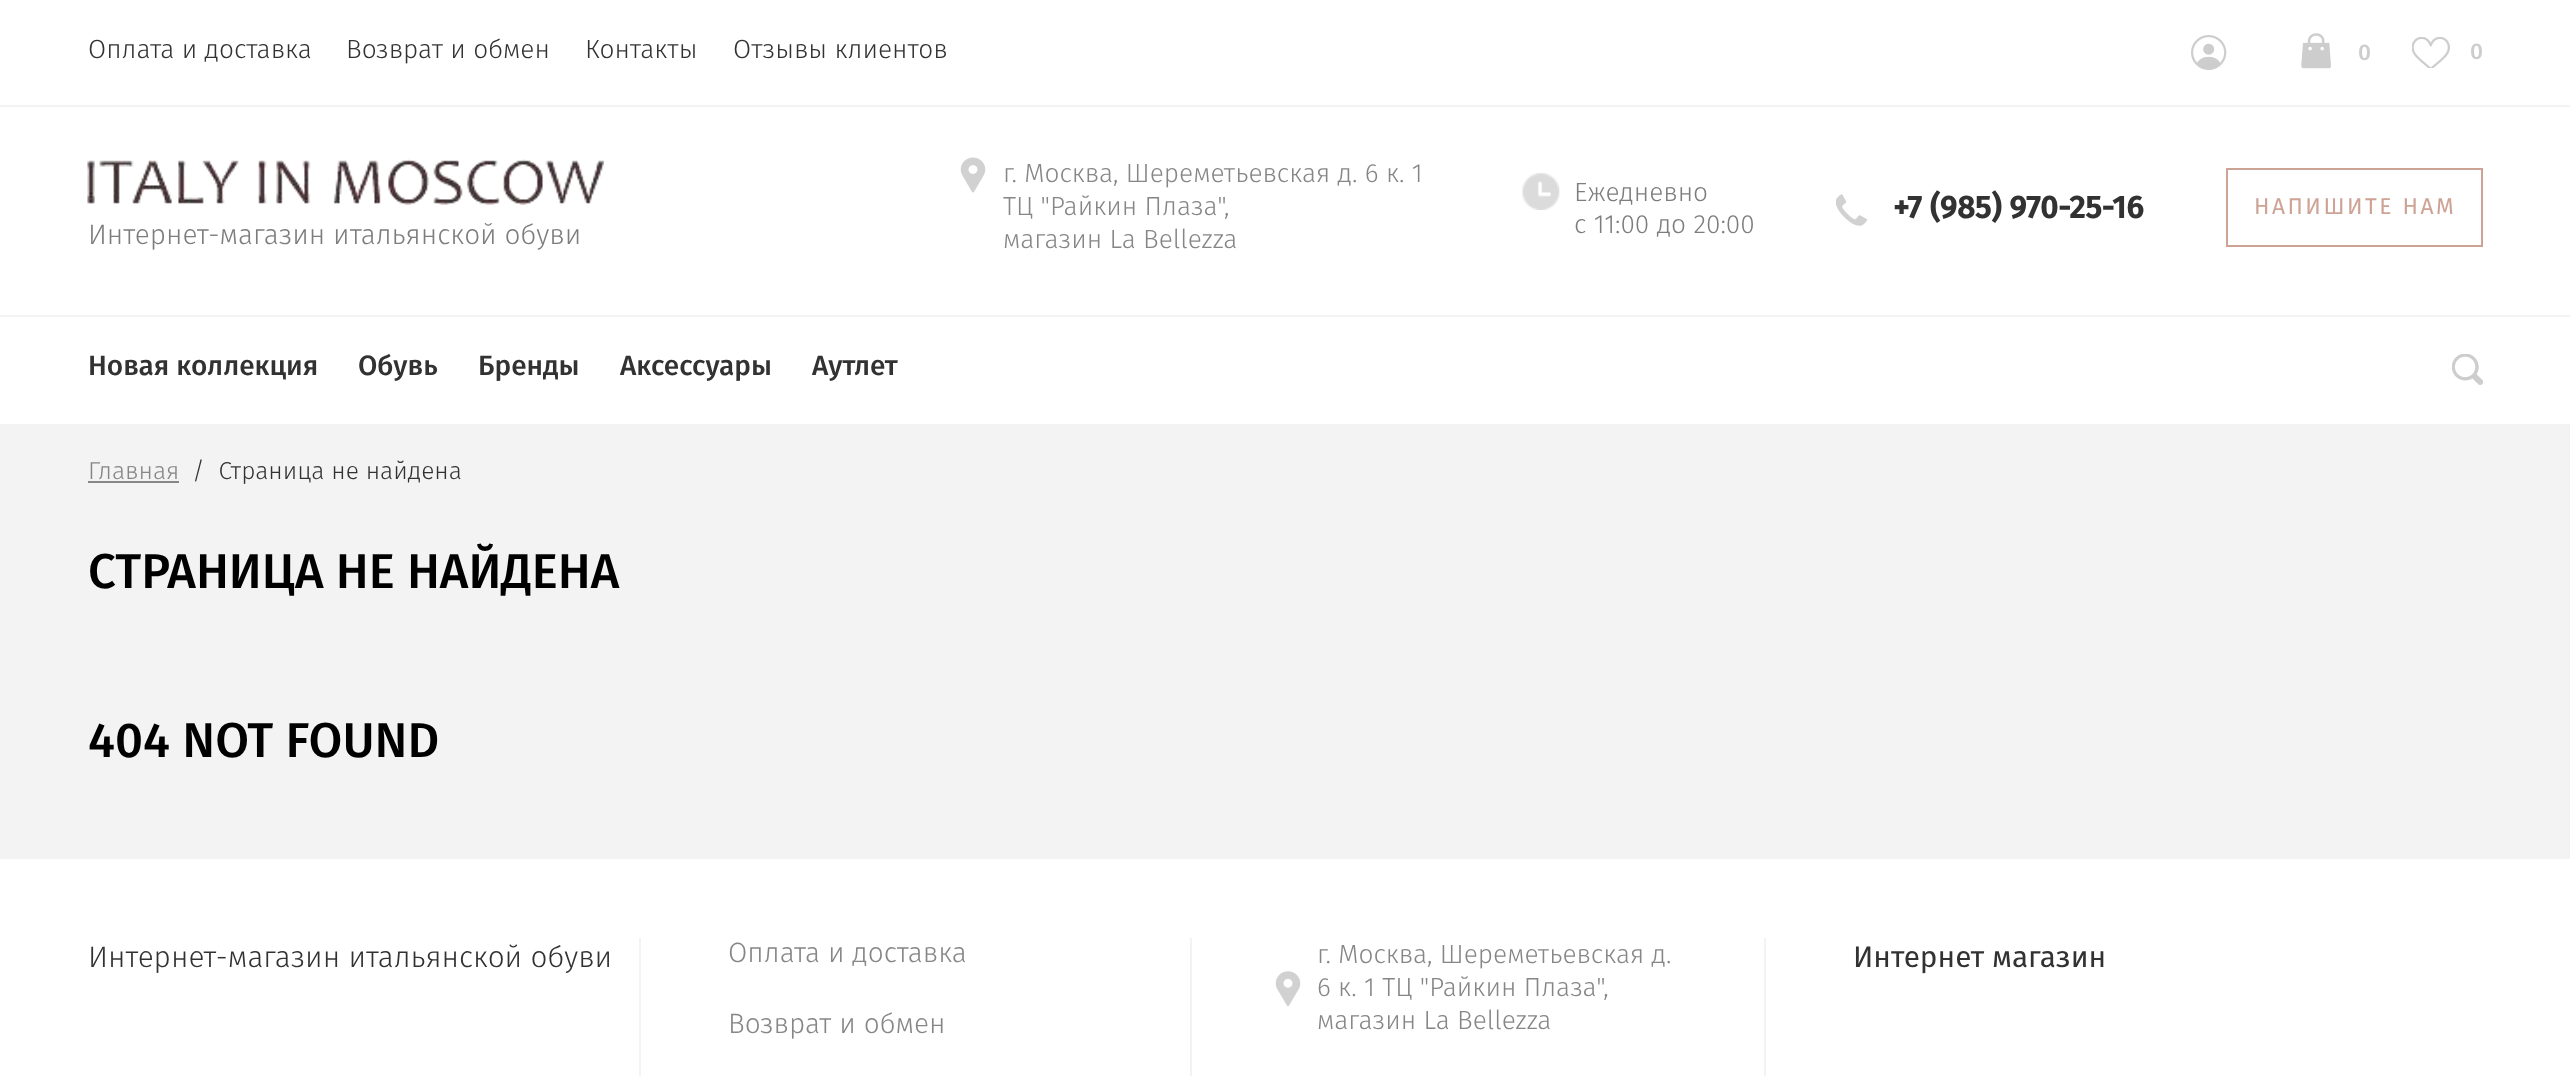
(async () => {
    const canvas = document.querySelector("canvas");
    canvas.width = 2570;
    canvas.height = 1076;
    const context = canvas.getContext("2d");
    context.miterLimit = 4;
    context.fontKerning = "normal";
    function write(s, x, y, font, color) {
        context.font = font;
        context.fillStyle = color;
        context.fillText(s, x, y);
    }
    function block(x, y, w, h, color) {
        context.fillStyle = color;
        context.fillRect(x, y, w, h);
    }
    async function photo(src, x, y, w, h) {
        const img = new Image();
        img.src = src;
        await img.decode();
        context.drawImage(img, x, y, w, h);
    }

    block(0, 0, 2570, 1076, "rgb(243, 243, 243)");
    block(0, 0, 2570, 424, "rgb(255, 255, 255)");
    write("Оплата и доставка", 88, 58, "300 26.25px Fira Sans", "rgb(50, 50, 50)");
    write("Возврат и обмен", 346, 58, "300 26.25px Fira Sans", "rgb(50, 50, 50)");
    write("Контакты", 585, 58, "300 26.25px Fira Sans", "rgb(50, 50, 50)");
    write("Отзывы клиентов", 733, 58, "300 26.25px Fira Sans", "rgb(50, 50, 50)");
    await photo("media/1.png", 2191, 35, 36, 35);
    await photo("media/2.png", 2301, 33, 30, 36);
    write("0", 2358, 60, "500 22.75px Fira Sans", "rgb(205, 205, 205)");
    await photo("media/3.png", 2412, 37, 38, 31);
    write("0", 2470, 59, "500 22.75px Fira Sans", "rgb(205, 205, 205)");
    block(0, 105, 2570, 2, "rgb(243, 243, 243)");
    await photo("media/4.png", 87, 159, 517, 46);
    write("Интернет-магазин итальянской обуви", 88, 244, "300 28px Fira Sans", "rgb(125, 125, 125)");
    await photo("media/5.png", 960, 157, 26, 36);
    write("г. Москва, Шереметьевская д. 6 к. 1", 1003, 182, "300 26.25px Fira Sans", "rgb(134, 134, 134)");
    write("ТЦ \"Райкин Плаза\",", 1003, 215, "300 26.25px Fira Sans", "rgb(134, 134, 134)");
    write("магазин La Bellezza", 1003, 248, "300 26.25px Fira Sans", "rgb(134, 134, 134)");
    await photo("media/6.png", 1522, 173, 38, 37);
    write("Ежедневно", 1574, 201, "300 26.25px Fira Sans", "rgb(125, 125, 125)");
    write("с 11:00 до 20:00", 1574, 233, "300 26.25px Fira Sans", "rgb(125, 125, 125)");
    await photo("media/7.png", 1836, 194, 31, 32);
    write("+7 (985) 970-25-16", 1893, 218, "bold 31.5px Fira Sans", "rgb(50, 50, 50)");
    context.strokeStyle = "rgb(205, 163, 149)";
    context.lineWidth = 2;
    context.strokeRect(2227, 169, 255, 77);
    context.letterSpacing = "2.5px";
    write("НАПИШИТЕ НАМ", 2254, 214, "22.75px Fira Sans", "rgb(205, 163, 149)");
    block(0, 315, 2570, 2, "rgb(243, 243, 243)");
    context.letterSpacing = "0px";
    write("Новая коллекция", 88, 375, "500 28px Fira Sans", "rgb(50, 50, 50)");
    write("Обувь", 358, 375, "500 28px Fira Sans", "rgb(50, 50, 50)");
    write("Бренды", 478, 375, "500 28px Fira Sans", "rgb(50, 50, 50)");
    write("Аксессуары", 620, 375, "500 28px Fira Sans", "rgb(50, 50, 50)");
    write("Аутлет", 812, 375, "500 28px Fira Sans", "rgb(50, 50, 50)");
    await photo("media/8.png", 2452, 354, 31, 31);
    write("Главная", 88, 479, "300 24.5px Fira Sans", "rgb(134, 134, 134)");
    block(88, 481, 91, 2, "rgb(134, 134, 134)");
    write("/  Страница не найдена", 192, 479, "300 24.5px Fira Sans", "rgb(50, 50, 50)");
    write("СТРАНИЦА НЕ НАЙДЕНА", 88, 588, "500 49px Fira Sans", "rgb(0, 0, 0)");
    write("404 NOT FOUND", 88, 757, "500 49px Fira Sans", "rgb(0, 0, 0)");
    block(0, 859, 2570, 217, "rgb(255, 255, 255)");
    write("Интернет-магазин итальянской обуви", 88, 967, "300 29.75px Fira Sans", "rgb(50, 50, 50)");
    block(639, 938, 2, 138, "rgb(243, 243, 243)");
    write("Оплата и доставка", 728, 962, "300 28px Fira Sans", "rgb(134, 134, 134)");
    write("Возврат и обмен", 728, 1033, "300 28px Fira Sans", "rgb(134, 134, 134)");
    block(1190, 938, 2, 138, "rgb(243, 243, 243)");
    await photo("media/9.png", 1275, 971, 26, 36);
    write("г. Москва, Шереметьевская д.", 1317, 963, "300 26.25px Fira Sans", "rgb(134, 134, 134)");
    write("6 к. 1 ТЦ \"Райкин Плаза\",", 1317, 996, "300 26.25px Fira Sans", "rgb(134, 134, 134)");
    write("магазин La Bellezza", 1317, 1029, "300 26.25px Fira Sans", "rgb(134, 134, 134)");
    block(1764, 938, 2, 138, "rgb(243, 243, 243)");
    write("Интернет магазин", 1853, 967, "29.75px Fira Sans", "rgb(50, 50, 50)");
})();
